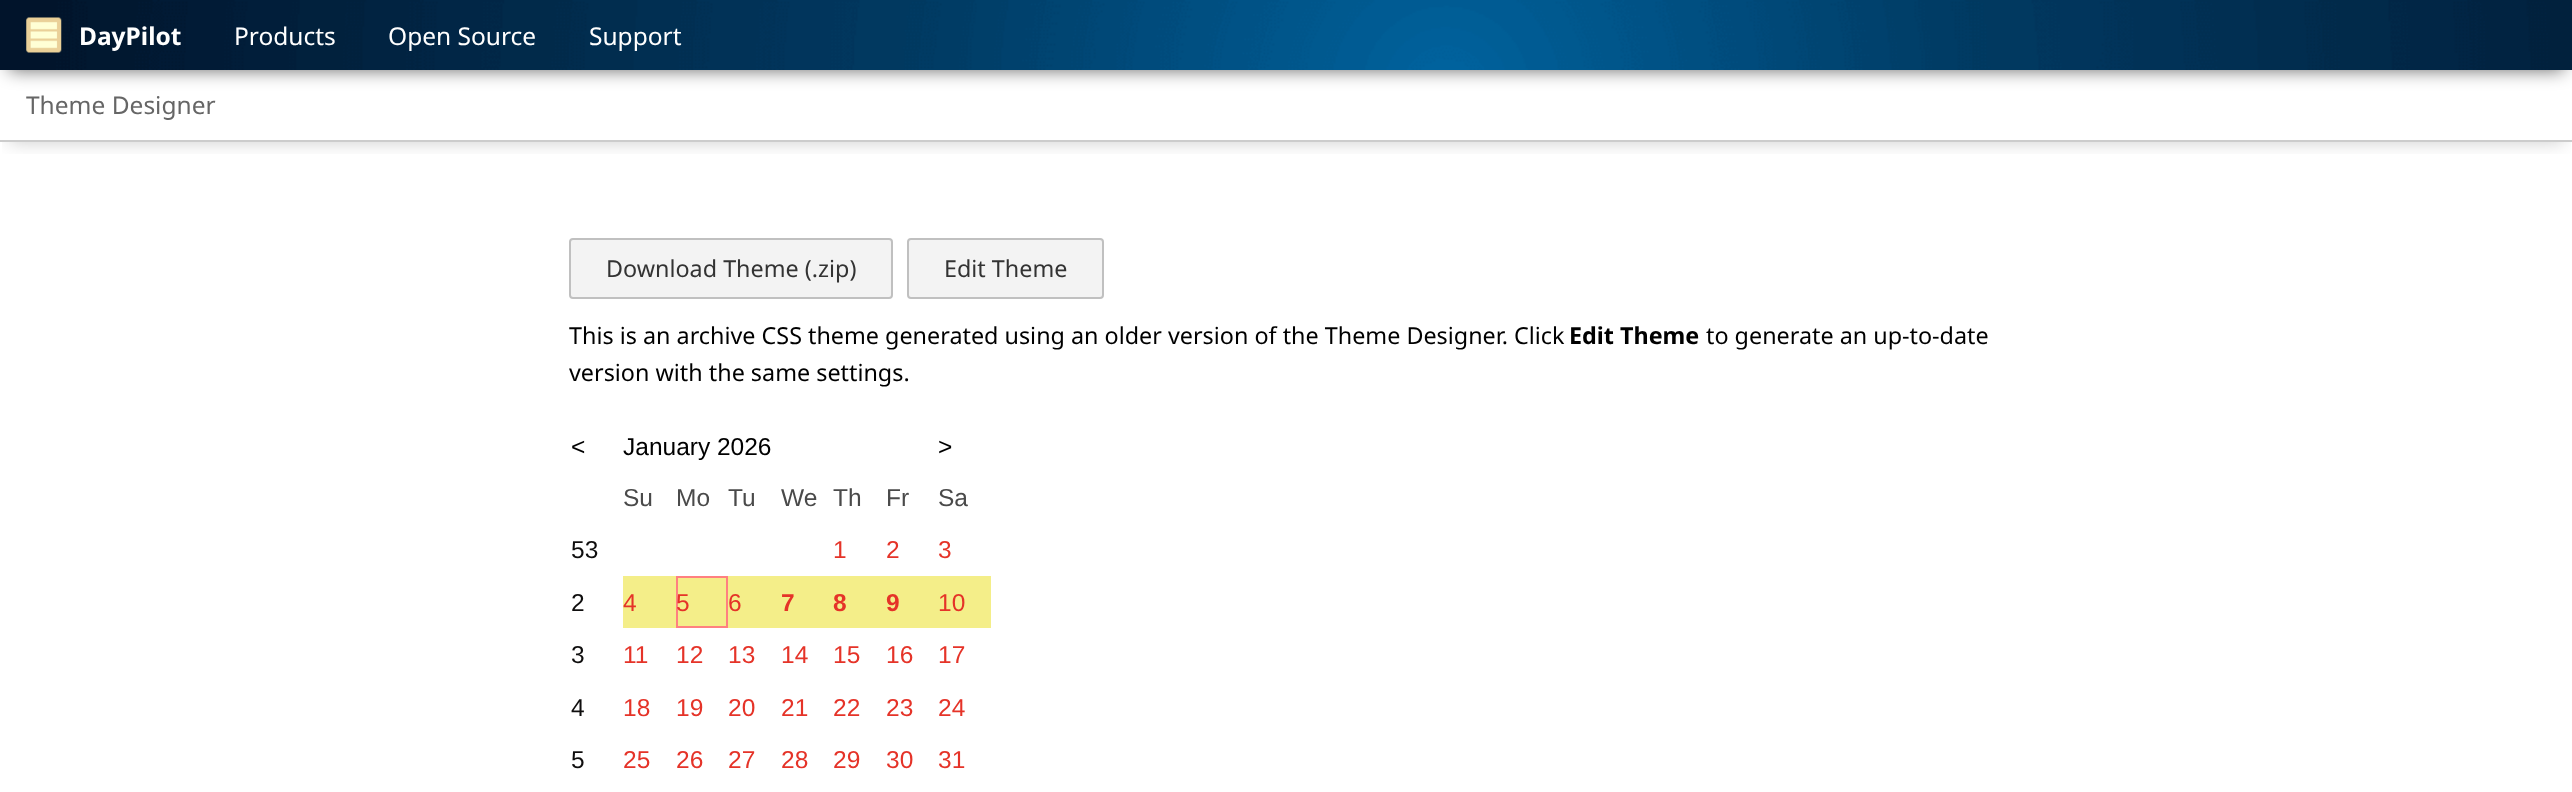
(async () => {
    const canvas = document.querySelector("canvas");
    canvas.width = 2572;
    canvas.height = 792;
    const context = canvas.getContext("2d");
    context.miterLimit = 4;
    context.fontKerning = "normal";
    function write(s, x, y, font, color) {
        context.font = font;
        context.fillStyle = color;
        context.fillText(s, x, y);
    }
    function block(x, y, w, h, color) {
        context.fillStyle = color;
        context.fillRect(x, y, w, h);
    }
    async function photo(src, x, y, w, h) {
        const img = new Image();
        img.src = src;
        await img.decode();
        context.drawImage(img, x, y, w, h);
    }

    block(0, 0, 2572, 792, "rgb(255, 255, 255)");
    context.fillStyle = "rgba(0, 0, 0, 0.6)";
    context.filter = "blur(9px)";
    context.beginPath();
    context.rect(9, 18, 2555, 52);
    context.fill();
    context.filter = "none";
    await photo("media/1.png", 0, 0, 2572, 70);
    await photo("media/2.png", 26, 17, 36, 36);
    write("DayPilot", 79, 45, "bold 24.5px Noto Sans", "rgb(255, 255, 255)");
    write("Products", 234, 45, "24.5px Noto Sans", "rgb(255, 255, 255)");
    write("Open Source", 388, 45, "24.5px Noto Sans", "rgb(255, 255, 255)");
    write("Support", 589, 45, "24.5px Noto Sans", "rgb(255, 255, 255)");
    context.save();
    context.beginPath();
    context.rect(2, 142, 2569, 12);
    context.clip();
    context.fillStyle = "rgba(0, 0, 0, 0.2)";
    context.filter = "blur(9px)";
    context.beginPath();
    context.rect(9, 88, 2555, 54);
    context.fill();
    context.filter = "none";
    context.restore();
    block(0, 140, 2572, 2, "rgb(204, 204, 204)");
    write("Theme Designer", 26, 114, "24.5px Noto Sans", "rgb(102, 102, 102)");
    context.fillStyle = "rgb(243, 243, 243)";
    context.beginPath();
    context.roundRect(570, 239, 322, 59, 3);
    context.fill();
    context.strokeStyle = "rgb(192, 192, 192)";
    context.lineWidth = 2;
    context.stroke();
    write("Download Theme (.zip)", 606, 277, "23.35px Noto Sans", "rgb(51, 51, 51)");
    context.fillStyle = "rgb(243, 243, 243)";
    context.beginPath();
    context.roundRect(908, 239, 195, 59, 3);
    context.fill();
    context.stroke();
    write("Edit Theme", 944, 277, "23.35px Noto Sans", "rgb(51, 51, 51)");
    write("This is an archive CSS theme generated using an older version of the Theme Designer. Click", 569, 344, "23.35px Noto Sans", "rgb(0, 0, 0)");
    write("Edit Theme", 1569, 344, "bold 23.35px Noto Sans", "rgb(0, 0, 0)");
    write("to generate an up-to-date", 1706, 344, "23.35px Noto Sans", "rgb(0, 0, 0)");
    write("version with the same settings.", 569, 381, "23.35px Noto Sans", "rgb(0, 0, 0)");
    write("<", 571, 455, "24.5px Liberation Sans", "rgb(0, 0, 0)");
    write("January 2026", 623, 455, "24.5px Liberation Sans", "rgb(0, 0, 0)");
    write(">", 938, 455, "24.5px Liberation Sans", "rgb(0, 0, 0)");
    write("Su", 623, 506, "24.5px Liberation Sans", "rgb(74, 74, 74)");
    write("Mo", 676, 506, "24.5px Liberation Sans", "rgb(74, 74, 74)");
    write("Tu", 728, 506, "24.5px Liberation Sans", "rgb(74, 74, 74)");
    write("We", 781, 506, "24.5px Liberation Sans", "rgb(74, 74, 74)");
    write("Th", 833, 506, "24.5px Liberation Sans", "rgb(74, 74, 74)");
    write("Fr", 886, 506, "24.5px Liberation Sans", "rgb(74, 74, 74)");
    write("Sa", 938, 506, "24.5px Liberation Sans", "rgb(74, 74, 74)");
    write("53", 571, 558, "24.5px Liberation Sans", "rgb(15, 14, 14)");
    write("1", 833, 558, "24.5px Liberation Sans", "rgb(229, 51, 40)");
    write("2", 886, 558, "24.5px Liberation Sans", "rgb(229, 51, 40)");
    write("3", 938, 558, "24.5px Liberation Sans", "rgb(229, 51, 40)");
    write("2", 571, 611, "24.5px Liberation Sans", "rgb(15, 14, 14)");
    block(623, 576, 53, 52, "rgb(244, 238, 137)");
    write("4", 623, 611, "24.5px Liberation Sans", "rgb(229, 51, 40)");
    context.fillStyle = "rgb(244, 238, 137)";
    context.beginPath();
    context.rect(677, 577, 50, 50);
    context.fill();
    context.strokeStyle = "rgb(255, 128, 128)";
    context.stroke();
    write("5", 676, 611, "24.5px Liberation Sans", "rgb(229, 51, 40)");
    block(728, 576, 263, 52, "rgb(244, 238, 137)");
    write("6", 728, 611, "24.5px Liberation Sans", "rgb(229, 51, 40)");
    write("7", 781, 611, "bold 24.5px Liberation Sans", "rgb(229, 51, 40)");
    write("8", 833, 611, "bold 24.5px Liberation Sans", "rgb(229, 51, 40)");
    write("9", 886, 611, "bold 24.5px Liberation Sans", "rgb(229, 51, 40)");
    write("10", 938, 611, "24.5px Liberation Sans", "rgb(229, 51, 40)");
    write("3", 571, 663, "24.5px Liberation Sans", "rgb(15, 14, 14)");
    write("11", 623, 663, "24.5px Liberation Sans", "rgb(229, 51, 40)");
    write("12", 676, 663, "24.5px Liberation Sans", "rgb(229, 51, 40)");
    write("13", 728, 663, "24.5px Liberation Sans", "rgb(229, 51, 40)");
    write("14", 781, 663, "24.5px Liberation Sans", "rgb(229, 51, 40)");
    write("15", 833, 663, "24.5px Liberation Sans", "rgb(229, 51, 40)");
    write("16", 886, 663, "24.5px Liberation Sans", "rgb(229, 51, 40)");
    write("17", 938, 663, "24.5px Liberation Sans", "rgb(229, 51, 40)");
    write("4", 571, 716, "24.5px Liberation Sans", "rgb(15, 14, 14)");
    write("18", 623, 716, "24.5px Liberation Sans", "rgb(229, 51, 40)");
    write("19", 676, 716, "24.5px Liberation Sans", "rgb(229, 51, 40)");
    write("20", 728, 716, "24.5px Liberation Sans", "rgb(229, 51, 40)");
    write("21", 781, 716, "24.5px Liberation Sans", "rgb(229, 51, 40)");
    write("22", 833, 716, "24.5px Liberation Sans", "rgb(229, 51, 40)");
    write("23", 886, 716, "24.5px Liberation Sans", "rgb(229, 51, 40)");
    write("24", 938, 716, "24.5px Liberation Sans", "rgb(229, 51, 40)");
    write("5", 571, 768, "24.5px Liberation Sans", "rgb(15, 14, 14)");
    write("25", 623, 768, "24.5px Liberation Sans", "rgb(229, 51, 40)");
    write("26", 676, 768, "24.5px Liberation Sans", "rgb(229, 51, 40)");
    write("27", 728, 768, "24.5px Liberation Sans", "rgb(229, 51, 40)");
    write("28", 781, 768, "24.5px Liberation Sans", "rgb(229, 51, 40)");
    write("29", 833, 768, "24.5px Liberation Sans", "rgb(229, 51, 40)");
    write("30", 886, 768, "24.5px Liberation Sans", "rgb(229, 51, 40)");
    write("31", 938, 768, "24.5px Liberation Sans", "rgb(229, 51, 40)");
})();
